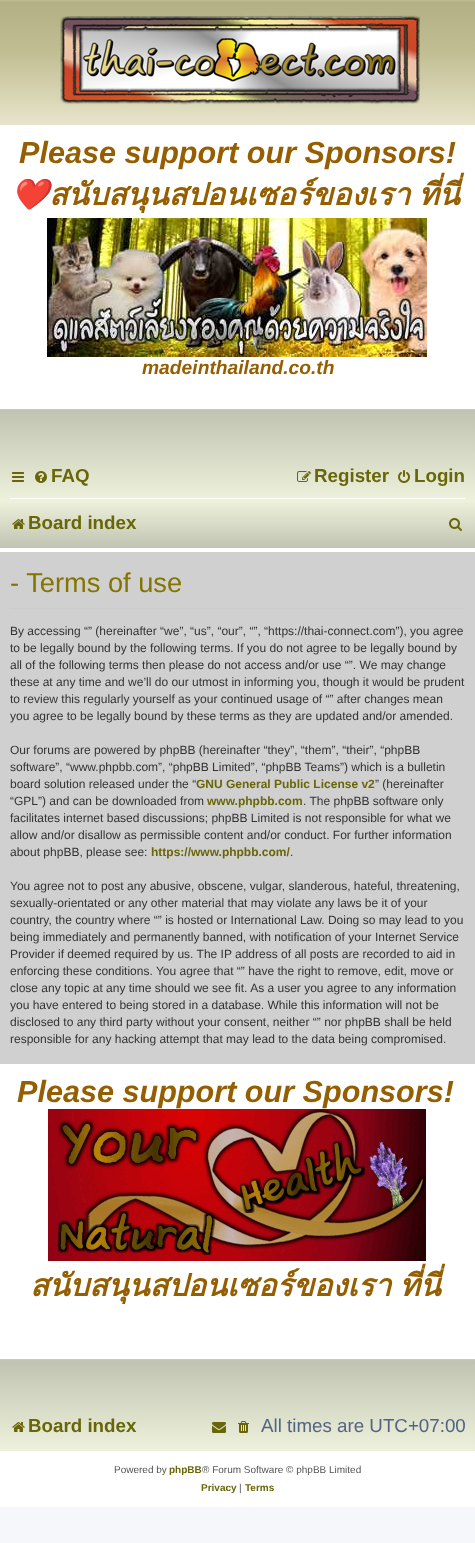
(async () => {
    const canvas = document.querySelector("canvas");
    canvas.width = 475;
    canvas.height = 1543;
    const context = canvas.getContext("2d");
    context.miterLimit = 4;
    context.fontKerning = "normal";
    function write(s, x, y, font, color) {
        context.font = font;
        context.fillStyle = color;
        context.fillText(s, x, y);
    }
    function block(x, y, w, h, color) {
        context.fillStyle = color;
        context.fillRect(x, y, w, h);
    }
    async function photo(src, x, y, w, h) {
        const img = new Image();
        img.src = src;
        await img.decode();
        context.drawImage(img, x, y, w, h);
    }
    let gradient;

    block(0, 0, 475, 1543, "rgb(245, 247, 250)");
    block(0, 125, 475, 1382, "rgb(255, 255, 255)");
    gradient = context.createLinearGradient(238, 0, 238, 125);
    gradient.addColorStop(0, "rgb(194, 190, 147)");
    gradient.addColorStop(0.02, "rgb(180, 176, 134)");
    gradient.addColorStop(0.42, "rgb(194, 190, 147)");
    gradient.addColorStop(1, "rgb(231, 228, 203)");
    context.fillStyle = gradient;
    context.fillRect(0, 0, 475, 125);
    await photo("media/1.png", 60, 15, 360, 90);
    write("Please support our Sponsors!", 19, 163, "italic bold 30.6px Liberation Sans", "rgb(149, 94, 0)");
    write("❤️", 11, 205, "italic bold 30.6px Noto Color Emoji", "rgb(149, 94, 0)");
    context.wordSpacing = "-2px";
    write("สนับสนุนสปอนเซอร์ของเรา ที่นี่", 49, 205, "italic bold 30.6px Loma", "rgb(149, 94, 0)");
    await photo("media/2.png", 47, 218, 380, 139);
    context.wordSpacing = "0px";
    write("madeinthailand.co.th", 142, 374, "italic bold 19.25px Liberation Sans", "rgb(149, 94, 0)");
    gradient = context.createLinearGradient(238, 409, 238, 548);
    gradient.addColorStop(0, "rgb(203, 203, 203)");
    gradient.addColorStop(0.01, "rgb(192, 195, 177)");
    gradient.addColorStop(0.66, "rgb(238, 242, 220)");
    gradient.addColorStop(1, "rgb(192, 195, 177)");
    context.fillStyle = gradient;
    context.fillRect(0, 409, 475, 139);
    await photo("media/3.png", 12, 472, 12, 10);
    await photo("media/4.png", 35, 471, 12, 12);
    write("FAQ", 51, 482, "bold 18.75px Liberation Sans", "rgb(105, 102, 9)");
    await photo("media/5.png", 297, 471, 14, 11);
    write("Register", 314, 482, "bold 18.75px Liberation Sans", "rgb(105, 102, 9)");
    await photo("media/6.png", 398, 470, 12, 13);
    write("Login", 414, 482, "bold 18.75px Liberation Sans", "rgb(105, 102, 9)");
    block(10, 498, 455, 1, "rgb(255, 255, 255)");
    await photo("media/7.png", 12, 519, 13, 10);
    write("Board index", 28, 529, "bold 18.75px Liberation Sans", "rgb(105, 102, 9)");
    await photo("media/8.png", 449, 518, 13, 13);
    block(0, 552, 475, 512, "rgb(208, 208, 208)");
    block(10, 608, 455, 1, "rgb(204, 204, 204)");
    write("- Terms of use", 10, 592, "27.25px Liberation Sans", "rgb(132, 116, 0)");
    write("By accessing “” (hereinafter “we”, “us”, “our”, “”, “https://thai-connect.com”), you agree", 10, 635, "12px Liberation Sans", "rgb(51, 51, 51)");
    write("to be legally bound by the following terms. If you do not agree to be legally bound by", 10, 652, "12px Liberation Sans", "rgb(51, 51, 51)");
    write("all of the following terms then please do not access and/or use “”. We may change", 10, 669, "12px Liberation Sans", "rgb(51, 51, 51)");
    write("these at any time and we’ll do our utmost in informing you, though it would be prudent", 10, 686, "12px Liberation Sans", "rgb(51, 51, 51)");
    write("to review this regularly yourself as your continued usage of “” after changes mean", 10, 703, "12px Liberation Sans", "rgb(51, 51, 51)");
    write("you agree to be legally bound by these terms as they are updated and/or amended.", 10, 720, "12px Liberation Sans", "rgb(51, 51, 51)");
    write("Our forums are powered by phpBB (hereinafter “they”, “them”, “their”, “phpBB", 10, 754, "12px Liberation Sans", "rgb(51, 51, 51)");
    write("software”, “www.phpbb.com”, “phpBB Limited”, “phpBB Teams”) which is a bulletin", 10, 771, "12px Liberation Sans", "rgb(51, 51, 51)");
    write("board solution released under the “", 10, 788, "12px Liberation Sans", "rgb(51, 51, 51)");
    write("GNU General Public License v2", 196, 788, "bold 12px Liberation Sans", "rgb(105, 102, 9)");
    write("” (hereinafter", 375, 788, "12px Liberation Sans", "rgb(51, 51, 51)");
    write("“GPL”) and can be downloaded from", 10, 805, "12px Liberation Sans", "rgb(51, 51, 51)");
    write("www.phpbb.com", 207, 805, "bold 12px Liberation Sans", "rgb(105, 102, 9)");
    write(". The phpBB software only", 303, 805, "12px Liberation Sans", "rgb(51, 51, 51)");
    write("facilitates internet based discussions; phpBB Limited is not responsible for what we", 10, 822, "12px Liberation Sans", "rgb(51, 51, 51)");
    write("allow and/or disallow as permissible content and/or conduct. For further information", 10, 839, "12px Liberation Sans", "rgb(51, 51, 51)");
    write("about phpBB, please see:", 10, 856, "12px Liberation Sans", "rgb(51, 51, 51)");
    write("https://www.phpbb.com/", 151, 856, "bold 12px Liberation Sans", "rgb(105, 102, 9)");
    write(".", 290, 856, "12px Liberation Sans", "rgb(51, 51, 51)");
    write("You agree not to post any abusive, obscene, vulgar, slanderous, hateful, threatening,", 10, 890, "12px Liberation Sans", "rgb(51, 51, 51)");
    write("sexually-orientated or any other material that may violate any laws be it of your", 10, 907, "12px Liberation Sans", "rgb(51, 51, 51)");
    write("country, the country where “” is hosted or International Law. Doing so may lead to you", 10, 924, "12px Liberation Sans", "rgb(51, 51, 51)");
    write("being immediately and permanently banned, with notification of your Internet Service", 10, 941, "12px Liberation Sans", "rgb(51, 51, 51)");
    write("Provider if deemed required by us. The IP address of all posts are recorded to aid in", 10, 958, "12px Liberation Sans", "rgb(51, 51, 51)");
    write("enforcing these conditions. You agree that “” have the right to remove, edit, move or", 10, 975, "12px Liberation Sans", "rgb(51, 51, 51)");
    write("close any topic at any time should we see fit. As a user you agree to any information", 10, 992, "12px Liberation Sans", "rgb(51, 51, 51)");
    write("you have entered to being stored in a database. While this information will not be", 10, 1009, "12px Liberation Sans", "rgb(51, 51, 51)");
    write("disclosed to any third party without your consent, neither “” nor phpBB shall be held", 10, 1026, "12px Liberation Sans", "rgb(51, 51, 51)");
    write("responsible for any hacking attempt that may lead to the data being compromised.", 10, 1043, "12px Liberation Sans", "rgb(51, 51, 51)");
    write("Please support our Sponsors!", 17, 1102, "italic bold 30.6px Liberation Sans", "rgb(149, 94, 0)");
    await photo("media/9.png", 48, 1109, 378, 152);
    context.wordSpacing = "-2px";
    write("สนับสนุนสปอนเซอร์ของเรา ที่นี่", 30, 1296, "italic bold 30.6px Loma", "rgb(149, 94, 0)");
    gradient = context.createLinearGradient(238, 1359, 238, 1451);
    gradient.addColorStop(0, "rgb(203, 203, 203)");
    gradient.addColorStop(0.02, "rgb(192, 195, 177)");
    gradient.addColorStop(1, "rgb(238, 242, 220)");
    gradient.addColorStop(1, "rgb(192, 195, 177)");
    context.fillStyle = gradient;
    context.fillRect(0, 1359, 475, 92);
    await photo("media/10.png", 12, 1422, 13, 10);
    context.wordSpacing = "0px";
    write("Board index", 28, 1432, "bold 18.75px Liberation Sans", "rgb(105, 102, 9)");
    await photo("media/11.png", 212, 1422, 14, 11);
    await photo("media/12.png", 238, 1421, 11, 12);
    write("All times are UTC+07:00", 261, 1432, "18.75px Liberation Sans", "rgb(83, 100, 130)");
    write("Powered by", 114, 1473, "10px Liberation Sans", "rgb(85, 85, 85)");
    write("phpBB", 169, 1473, "bold 10px Liberation Sans", "rgb(105, 102, 9)");
    write("® Forum Software © phpBB Limited", 202, 1473, "10px Liberation Sans", "rgb(85, 85, 85)");
    write("Privacy", 201, 1491, "bold 10px Liberation Sans", "rgb(105, 102, 9)");
    write("|", 239, 1491, "10px Liberation Sans", "rgb(85, 85, 85)");
    write("Terms", 245, 1491, "bold 10px Liberation Sans", "rgb(105, 102, 9)");
})();
